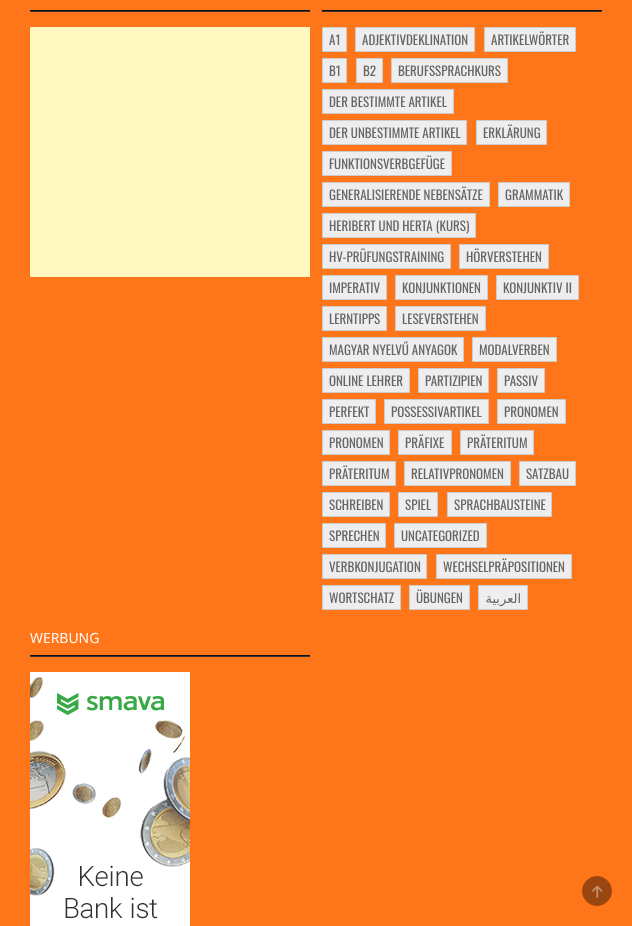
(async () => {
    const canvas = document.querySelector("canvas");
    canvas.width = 632;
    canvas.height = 926;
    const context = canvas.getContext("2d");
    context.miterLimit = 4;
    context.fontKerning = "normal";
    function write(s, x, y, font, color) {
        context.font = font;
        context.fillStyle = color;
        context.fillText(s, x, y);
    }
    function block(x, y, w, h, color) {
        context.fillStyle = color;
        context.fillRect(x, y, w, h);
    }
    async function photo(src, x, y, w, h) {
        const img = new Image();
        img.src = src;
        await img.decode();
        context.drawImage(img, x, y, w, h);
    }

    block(0, 0, 632, 926, "rgb(255, 117, 26)");
    block(30, 11, 280, 1, "rgb(51, 51, 51)");
    block(30, 10, 280, 1, "rgb(17, 17, 17)");
    block(30, 27, 280, 250, "rgb(255, 249, 192)");
    block(322, 11, 280, 1, "rgb(51, 51, 51)");
    block(322, 10, 280, 1, "rgb(17, 17, 17)");
    context.fillStyle = "rgb(238, 238, 238)";
    context.beginPath();
    context.rect(322.5, 27.5, 24, 24);
    context.fill();
    context.strokeStyle = "rgb(204, 204, 204)";
    context.stroke();
    write("A1", 329, 45, "13px Oswald", "rgb(102, 102, 102)");
    context.fillStyle = "rgb(238, 238, 238)";
    context.beginPath();
    context.rect(355.5, 27.5, 119, 24);
    context.fill();
    context.stroke();
    write("ADJEKTIVDEKLINATION", 362, 45, "13px Oswald", "rgb(102, 102, 102)");
    context.fillStyle = "rgb(238, 238, 238)";
    context.beginPath();
    context.rect(484.5, 27.5, 91, 24);
    context.fill();
    context.stroke();
    write("ARTIKELWÖRTER", 491, 45, "13px Oswald", "rgb(102, 102, 102)");
    context.fillStyle = "rgb(238, 238, 238)";
    context.beginPath();
    context.rect(322.5, 58.5, 24, 24);
    context.fill();
    context.stroke();
    write("B1", 329, 76, "13px Oswald", "rgb(102, 102, 102)");
    context.fillStyle = "rgb(238, 238, 238)";
    context.beginPath();
    context.rect(356.5, 58.5, 26, 24);
    context.fill();
    context.stroke();
    write("B2", 363, 76, "13px Oswald", "rgb(102, 102, 102)");
    context.fillStyle = "rgb(238, 238, 238)";
    context.beginPath();
    context.rect(391.5, 58.5, 116, 24);
    context.fill();
    context.stroke();
    write("BERUFSSPRACHKURS", 398, 76, "13px Oswald", "rgb(102, 102, 102)");
    context.fillStyle = "rgb(238, 238, 238)";
    context.beginPath();
    context.rect(322.5, 89.5, 131, 24);
    context.fill();
    context.stroke();
    write("DER BESTIMMTE ARTIKEL", 329, 107, "13px Oswald", "rgb(102, 102, 102)");
    context.fillStyle = "rgb(238, 238, 238)";
    context.beginPath();
    context.rect(322.5, 120.5, 144, 24);
    context.fill();
    context.stroke();
    write("DER UNBESTIMMTE ARTIKEL", 329, 138, "13px Oswald", "rgb(102, 102, 102)");
    context.fillStyle = "rgb(238, 238, 238)";
    context.beginPath();
    context.rect(476.5, 120.5, 70, 24);
    context.fill();
    context.stroke();
    write("ERKLÄRUNG", 483, 138, "13px Oswald", "rgb(102, 102, 102)");
    context.fillStyle = "rgb(238, 238, 238)";
    context.beginPath();
    context.rect(322.5, 151.5, 129, 24);
    context.fill();
    context.stroke();
    write("FUNKTIONSVERBGEFÜGE", 329, 169, "13px Oswald", "rgb(102, 102, 102)");
    context.fillStyle = "rgb(238, 238, 238)";
    context.beginPath();
    context.rect(322.5, 182.5, 167, 24);
    context.fill();
    context.stroke();
    write("GENERALISIERENDE NEBENSÄTZE", 329, 200, "13px Oswald", "rgb(102, 102, 102)");
    context.fillStyle = "rgb(238, 238, 238)";
    context.beginPath();
    context.rect(498.5, 182.5, 71, 24);
    context.fill();
    context.stroke();
    write("GRAMMATIK", 505, 200, "13px Oswald", "rgb(102, 102, 102)");
    context.fillStyle = "rgb(238, 238, 238)";
    context.beginPath();
    context.rect(322.5, 213.5, 153, 24);
    context.fill();
    context.stroke();
    write("HERIBERT UND HERTA (KURS)", 329, 231, "13px Oswald", "rgb(102, 102, 102)");
    context.fillStyle = "rgb(238, 238, 238)";
    context.beginPath();
    context.rect(322.5, 244.5, 128, 24);
    context.fill();
    context.stroke();
    write("HV-PRÜFUNGSTRAINING", 329, 262, "13px Oswald", "rgb(102, 102, 102)");
    context.fillStyle = "rgb(238, 238, 238)";
    context.beginPath();
    context.rect(459.5, 244.5, 89, 24);
    context.fill();
    context.stroke();
    write("HÖRVERSTEHEN", 466, 262, "13px Oswald", "rgb(102, 102, 102)");
    context.fillStyle = "rgb(238, 238, 238)";
    context.beginPath();
    context.rect(322.5, 275.5, 64, 24);
    context.fill();
    context.stroke();
    write("IMPERATIV", 329, 293, "13px Oswald", "rgb(102, 102, 102)");
    context.fillStyle = "rgb(238, 238, 238)";
    context.beginPath();
    context.rect(395.5, 275.5, 92, 24);
    context.fill();
    context.stroke();
    write("KONJUNKTIONEN", 402, 293, "13px Oswald", "rgb(102, 102, 102)");
    context.fillStyle = "rgb(238, 238, 238)";
    context.beginPath();
    context.rect(496.5, 275.5, 82, 24);
    context.fill();
    context.stroke();
    write("KONJUNKTIV II", 503, 293, "13px Oswald", "rgb(102, 102, 102)");
    context.fillStyle = "rgb(238, 238, 238)";
    context.beginPath();
    context.rect(322.5, 306.5, 64, 24);
    context.fill();
    context.stroke();
    write("LERNTIPPS", 329, 324, "13px Oswald", "rgb(102, 102, 102)");
    context.fillStyle = "rgb(238, 238, 238)";
    context.beginPath();
    context.rect(395.5, 306.5, 90, 24);
    context.fill();
    context.stroke();
    write("LESEVERSTEHEN", 402, 324, "13px Oswald", "rgb(102, 102, 102)");
    context.fillStyle = "rgb(238, 238, 238)";
    context.beginPath();
    context.rect(322.5, 337.5, 141, 24);
    context.fill();
    context.stroke();
    write("MAGYAR NYELVŰ ANYAGOK", 329, 355, "13px Oswald", "rgb(102, 102, 102)");
    context.fillStyle = "rgb(238, 238, 238)";
    context.beginPath();
    context.rect(472.5, 337.5, 84, 24);
    context.fill();
    context.stroke();
    write("MODALVERBEN", 479, 355, "13px Oswald", "rgb(102, 102, 102)");
    context.fillStyle = "rgb(238, 238, 238)";
    context.beginPath();
    context.rect(322.5, 368.5, 87, 24);
    context.fill();
    context.stroke();
    write("ONLINE LEHRER", 329, 386, "13px Oswald", "rgb(102, 102, 102)");
    context.fillStyle = "rgb(238, 238, 238)";
    context.beginPath();
    context.rect(418.5, 368.5, 70, 24);
    context.fill();
    context.stroke();
    write("PARTIZIPIEN", 425, 386, "13px Oswald", "rgb(102, 102, 102)");
    context.fillStyle = "rgb(238, 238, 238)";
    context.beginPath();
    context.rect(497.5, 368.5, 47, 24);
    context.fill();
    context.stroke();
    write("PASSIV", 504, 386, "13px Oswald", "rgb(102, 102, 102)");
    context.fillStyle = "rgb(238, 238, 238)";
    context.beginPath();
    context.rect(322.5, 399.5, 53, 24);
    context.fill();
    context.stroke();
    write("PERFEKT", 329, 417, "13px Oswald", "rgb(102, 102, 102)");
    context.fillStyle = "rgb(238, 238, 238)";
    context.beginPath();
    context.rect(384.5, 399.5, 104, 24);
    context.fill();
    context.stroke();
    write("POSSESSIVARTIKEL", 391, 417, "13px Oswald", "rgb(102, 102, 102)");
    context.fillStyle = "rgb(238, 238, 238)";
    context.beginPath();
    context.rect(497.5, 399.5, 68, 24);
    context.fill();
    context.stroke();
    write("PRONOMEN", 504, 417, "13px Oswald", "rgb(102, 102, 102)");
    context.fillStyle = "rgb(238, 238, 238)";
    context.beginPath();
    context.rect(322.5, 430.5, 67, 24);
    context.fill();
    context.stroke();
    write("PRONOMEN", 329, 448, "13px Oswald", "rgb(102, 102, 102)");
    context.fillStyle = "rgb(238, 238, 238)";
    context.beginPath();
    context.rect(398.5, 430.5, 53, 24);
    context.fill();
    context.stroke();
    write("PRÄFIXE", 405, 448, "13px Oswald", "rgb(102, 102, 102)");
    context.fillStyle = "rgb(238, 238, 238)";
    context.beginPath();
    context.rect(460.5, 430.5, 73, 24);
    context.fill();
    context.stroke();
    write("PRÄTERITUM", 467, 448, "13px Oswald", "rgb(102, 102, 102)");
    context.fillStyle = "rgb(238, 238, 238)";
    context.beginPath();
    context.rect(322.5, 461.5, 73, 24);
    context.fill();
    context.stroke();
    write("PRÄTERITUM", 329, 479, "13px Oswald", "rgb(102, 102, 102)");
    context.fillStyle = "rgb(238, 238, 238)";
    context.beginPath();
    context.rect(404.5, 461.5, 106, 24);
    context.fill();
    context.stroke();
    write("RELATIVPRONOMEN", 411, 479, "13px Oswald", "rgb(102, 102, 102)");
    context.fillStyle = "rgb(238, 238, 238)";
    context.beginPath();
    context.rect(519.5, 461.5, 56, 24);
    context.fill();
    context.stroke();
    write("SATZBAU", 526, 479, "13px Oswald", "rgb(102, 102, 102)");
    context.fillStyle = "rgb(238, 238, 238)";
    context.beginPath();
    context.rect(322.5, 492.5, 67, 24);
    context.fill();
    context.stroke();
    write("SCHREIBEN", 329, 510, "13px Oswald", "rgb(102, 102, 102)");
    context.fillStyle = "rgb(238, 238, 238)";
    context.beginPath();
    context.rect(398.5, 492.5, 39, 24);
    context.fill();
    context.stroke();
    write("SPIEL", 405, 510, "13px Oswald", "rgb(102, 102, 102)");
    context.fillStyle = "rgb(238, 238, 238)";
    context.beginPath();
    context.rect(447.5, 492.5, 104, 24);
    context.fill();
    context.stroke();
    write("SPRACHBAUSTEINE", 454, 510, "13px Oswald", "rgb(102, 102, 102)");
    context.fillStyle = "rgb(238, 238, 238)";
    context.beginPath();
    context.rect(322.5, 523.5, 63, 24);
    context.fill();
    context.stroke();
    write("SPRECHEN", 329, 541, "13px Oswald", "rgb(102, 102, 102)");
    context.fillStyle = "rgb(238, 238, 238)";
    context.beginPath();
    context.rect(394.5, 523.5, 92, 24);
    context.fill();
    context.stroke();
    write("UNCATEGORIZED", 401, 541, "13px Oswald", "rgb(102, 102, 102)");
    context.fillStyle = "rgb(238, 238, 238)";
    context.beginPath();
    context.rect(322.5, 554.5, 104, 24);
    context.fill();
    context.stroke();
    write("VERBKONJUGATION", 329, 572, "13px Oswald", "rgb(102, 102, 102)");
    context.fillStyle = "rgb(238, 238, 238)";
    context.beginPath();
    context.rect(436.5, 554.5, 135, 24);
    context.fill();
    context.stroke();
    write("WECHSELPRÄPOSITIONEN", 443, 572, "13px Oswald", "rgb(102, 102, 102)");
    context.fillStyle = "rgb(238, 238, 238)";
    context.beginPath();
    context.rect(322.5, 585.5, 78, 24);
    context.fill();
    context.stroke();
    write("WORTSCHATZ", 329, 603, "13px Oswald", "rgb(102, 102, 102)");
    context.fillStyle = "rgb(238, 238, 238)";
    context.beginPath();
    context.rect(409.5, 585.5, 60, 24);
    context.fill();
    context.stroke();
    write("ÜBUNGEN", 416, 603, "13px Oswald", "rgb(102, 102, 102)");
    context.fillStyle = "rgb(238, 238, 238)";
    context.beginPath();
    context.rect(478.5, 585.5, 49, 24);
    context.fill();
    context.stroke();
    context.direction = "rtl";
    write("العربية", 521, 603, "13px DejaVu Sans", "rgb(102, 102, 102)");
    block(30, 656, 280, 1, "rgb(51, 51, 51)");
    block(30, 655, 280, 1, "rgb(17, 17, 17)");
    context.direction = "ltr";
    write("WERBUNG", 30, 643, "14px Open Sans", "rgb(255, 255, 255)");
    await photo("media/1.png", 30, 672, 160, 254);
    context.fillStyle = "rgb(153, 70, 16)";
    context.beginPath();
    context.arc(597, 891, 14.5, 0, Math.PI * 2);
    context.fill();
    context.strokeStyle = "rgb(153, 70, 16)";
    context.stroke();
    await photo("media/2.png", 592, 885, 11, 13);
})();
